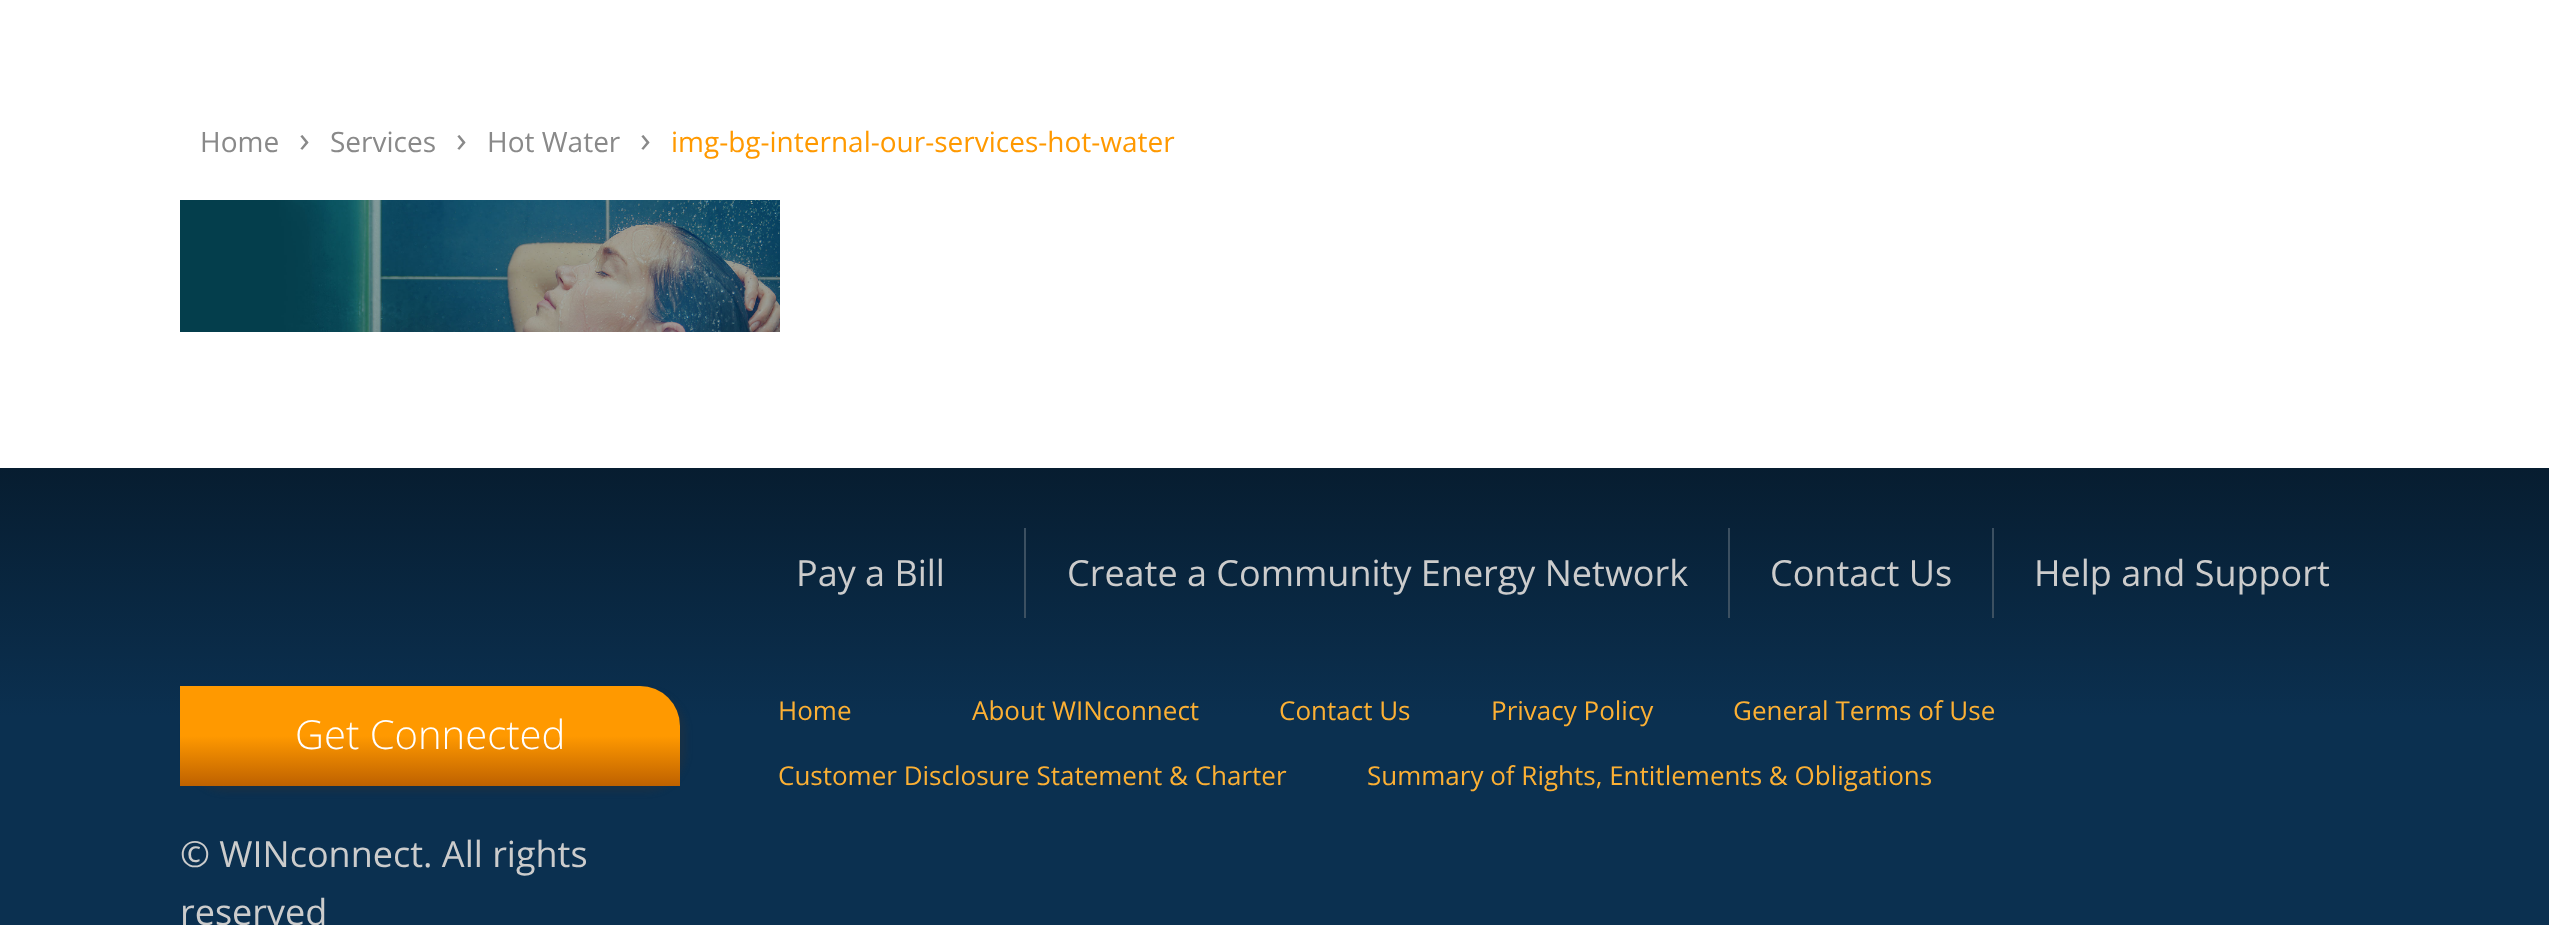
(async () => {
    const canvas = document.querySelector("canvas");
    canvas.width = 2549;
    canvas.height = 925;
    const context = canvas.getContext("2d");
    context.miterLimit = 4;
    context.fontKerning = "normal";
    function write(s, x, y, font, color) {
        context.font = font;
        context.fillStyle = color;
        context.fillText(s, x, y);
    }
    function block(x, y, w, h, color) {
        context.fillStyle = color;
        context.fillRect(x, y, w, h);
    }
    async function photo(src, x, y, w, h) {
        const img = new Image();
        img.src = src;
        await img.decode();
        context.drawImage(img, x, y, w, h);
    }
    let gradient;

    block(0, 0, 2549, 925, "rgb(255, 255, 255)");
    write("Home", 200, 152, "28px Open Sans", "rgb(137, 137, 137)");
    write("›", 299, 152, "36px Open Sans", "rgb(137, 137, 137)");
    write("Services", 330, 152, "28px Open Sans", "rgb(137, 137, 137)");
    write("›", 456, 152, "36px Open Sans", "rgb(137, 137, 137)");
    write("Hot Water", 487, 152, "28px Open Sans", "rgb(137, 137, 137)");
    write("›", 640, 152, "36px Open Sans", "rgb(137, 137, 137)");
    write("img-bg-internal-our-services-hot-water", 671, 152, "28px Open Sans", "rgb(255, 153, 0)");
    await photo("media/1.png", 180, 200, 600, 132);
    gradient = context.createLinearGradient(1275, 468, 1275, 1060);
    gradient.addColorStop(0, "rgb(7, 29, 48)");
    gradient.addColorStop(0.42, "rgb(11, 48, 80)");
    context.fillStyle = gradient;
    context.fillRect(0, 468, 2549, 457);
    block(1024, 528, 2, 90, "rgb(60, 80, 97)");
    write("Pay a Bill", 796, 586, "36px Open Sans", "rgb(204, 204, 204)");
    block(1728, 528, 2, 90, "rgb(60, 80, 97)");
    write("Create a Community Energy Network", 1067, 586, "36px Open Sans", "rgb(204, 204, 204)");
    block(1992, 528, 2, 90, "rgb(60, 80, 97)");
    write("Contact Us", 1770, 586, "36px Open Sans", "rgb(204, 204, 204)");
    write("Help and Support", 2034, 586, "36px Open Sans", "rgb(204, 204, 204)");
    write("Home", 778, 720, "26px Open Sans", "rgb(252, 176, 52)");
    write("About WINconnect", 972, 720, "26px Open Sans", "rgb(252, 176, 52)");
    write("Contact Us", 1279, 720, "26px Open Sans", "rgb(252, 176, 52)");
    write("Privacy Policy", 1491, 720, "26px Open Sans", "rgb(252, 176, 52)");
    write("General Terms of Use", 1733, 720, "26px Open Sans", "rgb(252, 176, 52)");
    write("Customer Disclosure Statement & Charter", 778, 785, "26px Open Sans", "rgb(252, 176, 52)");
    write("Summary of Rights, Entitlements & Obligations", 1367, 785, "26px Open Sans", "rgb(252, 176, 52)");
    context.fillStyle = "rgba(50, 50, 50, 0.3)";
    context.filter = "blur(3px)";
    context.beginPath();
    context.roundRect(186, 692, 500, 100, 40);
    context.fill();
    context.filter = "none";
    gradient = context.createLinearGradient(430, 686, 430, 786);
    gradient.addColorStop(0.5, "rgb(255, 153, 0)");
    gradient.addColorStop(1, "rgb(190, 97, 0)");
    context.fillStyle = gradient;
    context.beginPath();
    context.roundRect(180, 686, 500, 100, [0, 40, 0, 0]);
    context.fill();
    write("Get Connected", 295, 749, "300 40px Open Sans", "rgb(255, 255, 255)");
    write("© WINconnect. All rights", 180, 867, "36px Open Sans", "rgb(204, 204, 204)");
    write("reserved", 180, 925, "36px Open Sans", "rgb(204, 204, 204)");
})();
